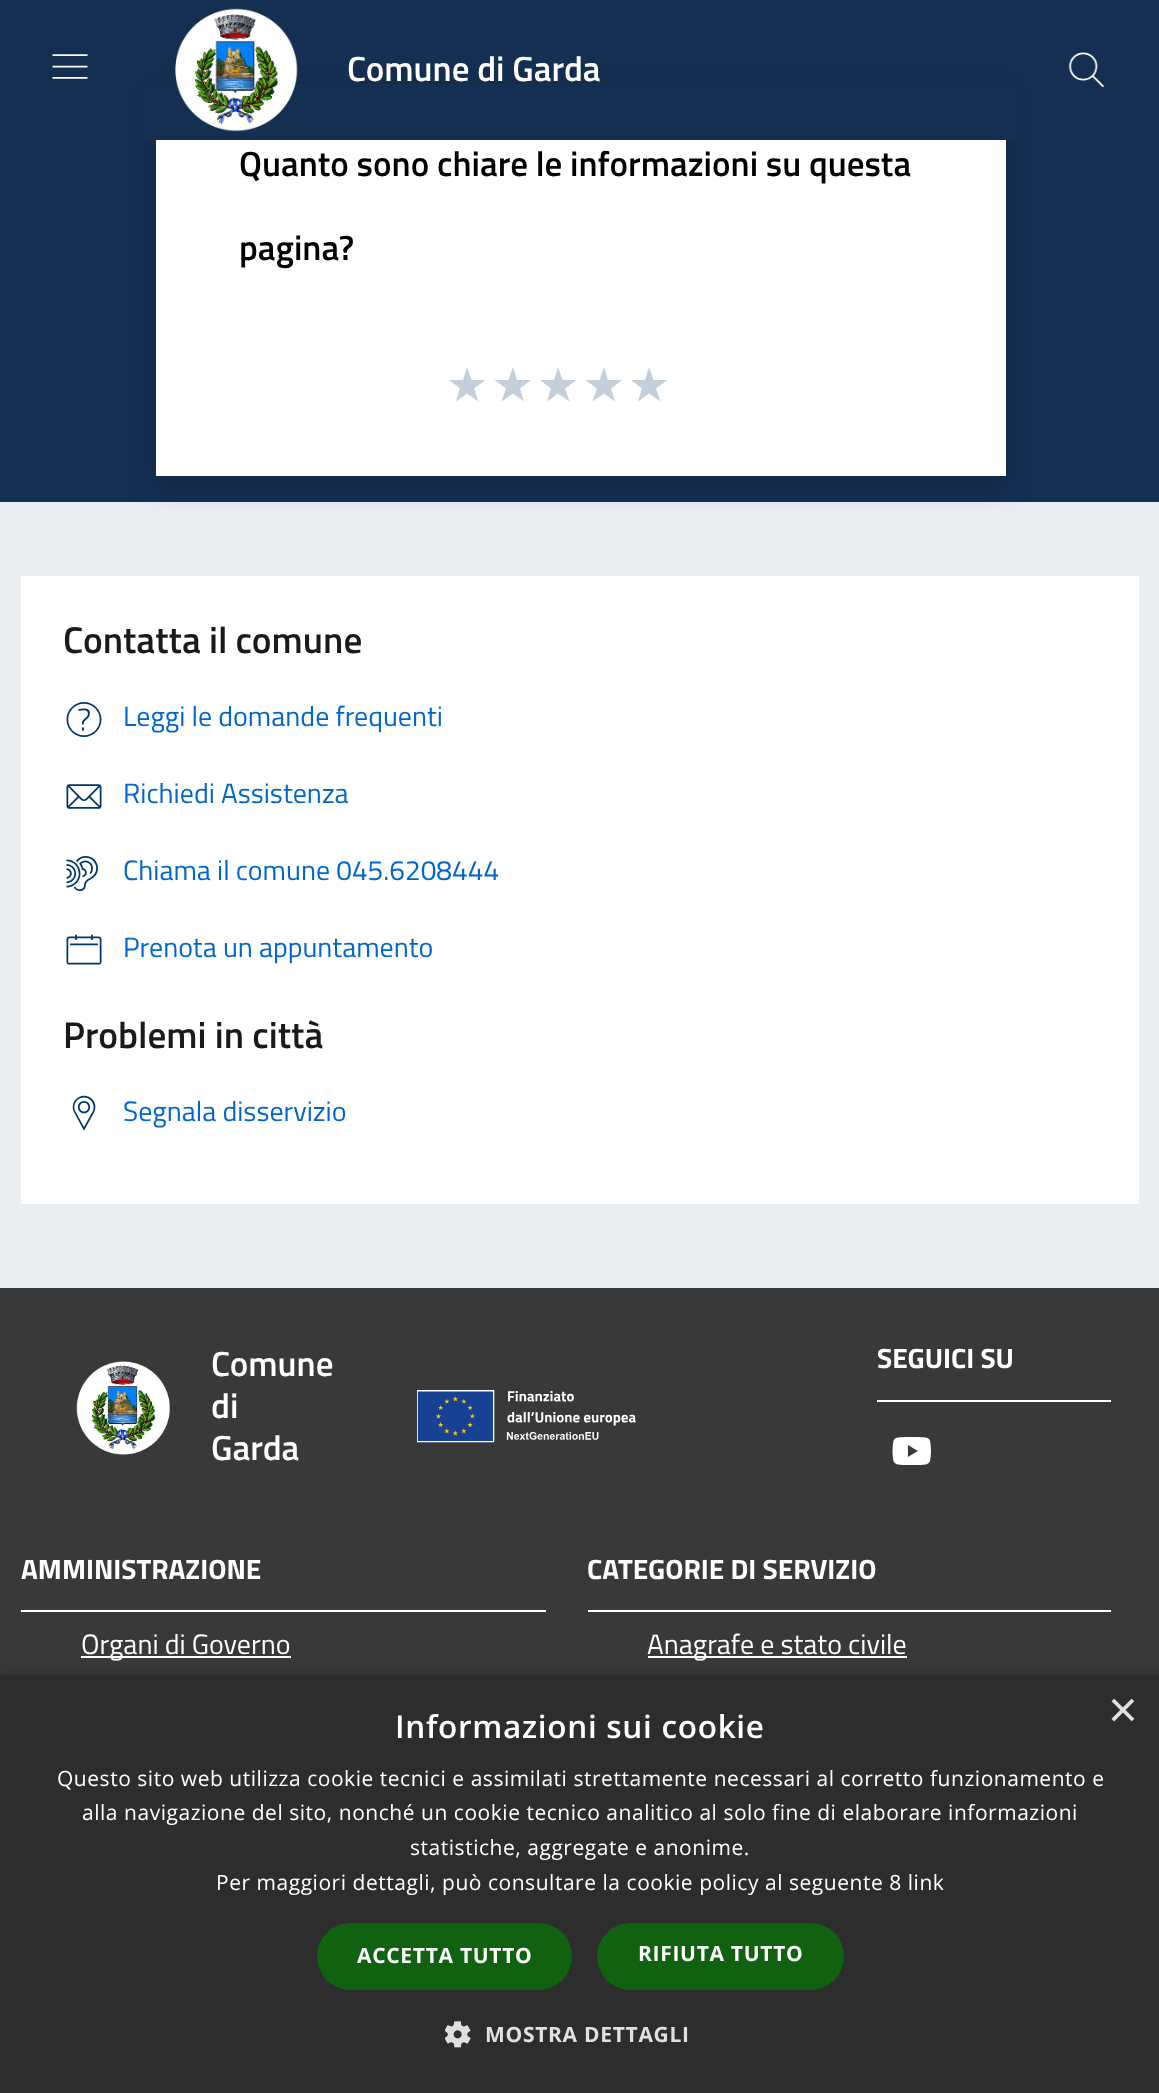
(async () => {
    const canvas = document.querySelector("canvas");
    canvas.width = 1159;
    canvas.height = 2093;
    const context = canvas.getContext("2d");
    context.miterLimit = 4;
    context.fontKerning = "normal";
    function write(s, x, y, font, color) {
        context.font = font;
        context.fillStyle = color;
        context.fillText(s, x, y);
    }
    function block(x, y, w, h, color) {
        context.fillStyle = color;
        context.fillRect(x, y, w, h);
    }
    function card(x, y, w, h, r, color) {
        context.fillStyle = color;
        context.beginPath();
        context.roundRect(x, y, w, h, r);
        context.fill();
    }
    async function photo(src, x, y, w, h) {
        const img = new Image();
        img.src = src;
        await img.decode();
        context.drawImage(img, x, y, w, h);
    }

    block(0, 0, 1159, 2093, "rgb(21, 47, 82)");
    await photo("media/1.png", 52, 54, 36, 25);
    block(0, 502, 1159, 786, "rgb(235, 238, 240)");
    context.fillStyle = "rgba(0, 0, 0, 0.15)";
    context.filter = "blur(14px)";
    context.beginPath();
    context.rect(156, 95, 850, 395);
    context.fill();
    context.filter = "none";
    block(145, 84, 872, 56, "rgb(21, 47, 82)");
    await photo("media/2.png", 175, 8, 123, 124);
    write("Comune di Garda", 347, 81, "600 35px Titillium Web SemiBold", "rgb(255, 255, 255)");
    await photo("media/3.png", 1068, 52, 37, 36);
    block(156, 140, 850, 336, "rgb(255, 255, 255)");
    write("Quanto sono chiare le informazioni su questa", 239, 176, "600 35px Titillium Web SemiBold", "rgb(0, 0, 0)");
    write("pagina?", 239, 260, "600 35px Titillium Web SemiBold", "rgb(0, 0, 0)");
    context.fillStyle = "rgb(195, 207, 219)";
    context.beginPath();
    context.moveTo(467, 367);
    context.lineTo(463, 380);
    context.lineTo(449, 380);
    context.lineTo(460, 388.5);
    context.lineTo(456, 401.5);
    context.lineTo(467, 393.5);
    context.lineTo(478.5, 401.5);
    context.lineTo(474, 388.5);
    context.lineTo(485.5, 380);
    context.lineTo(471.5, 380);
    context.closePath();
    context.fill();
    context.beginPath();
    context.moveTo(513, 367);
    context.lineTo(508.5, 380);
    context.lineTo(494.5, 380);
    context.lineTo(506, 388.5);
    context.lineTo(501.5, 401.5);
    context.lineTo(513, 393.5);
    context.lineTo(524, 401.5);
    context.lineTo(520, 388.5);
    context.lineTo(531, 380);
    context.lineTo(517, 380);
    context.closePath();
    context.fill();
    context.beginPath();
    context.moveTo(558, 367);
    context.lineTo(554, 380);
    context.lineTo(540, 380);
    context.lineTo(551, 388.5);
    context.lineTo(547, 401.5);
    context.lineTo(558, 393.5);
    context.lineTo(569.5, 401.5);
    context.lineTo(565, 388.5);
    context.lineTo(576.5, 380);
    context.lineTo(562.5, 380);
    context.closePath();
    context.fill();
    context.beginPath();
    context.moveTo(604, 367);
    context.lineTo(599.5, 380);
    context.lineTo(585.5, 380);
    context.lineTo(597, 388.5);
    context.lineTo(592.5, 401.5);
    context.lineTo(604, 393.5);
    context.lineTo(615, 401.5);
    context.lineTo(611, 388.5);
    context.lineTo(622, 380);
    context.lineTo(608, 380);
    context.closePath();
    context.fill();
    context.beginPath();
    context.moveTo(649, 367);
    context.lineTo(645, 380);
    context.lineTo(631, 380);
    context.lineTo(642, 388.5);
    context.lineTo(638, 401.5);
    context.lineTo(649, 393.5);
    context.lineTo(660.5, 401.5);
    context.lineTo(656, 388.5);
    context.lineTo(667.5, 380);
    context.lineTo(653.5, 380);
    context.closePath();
    context.fill();
    block(21, 576, 1118, 628, "rgb(255, 255, 255)");
    write("Contatta il comune", 63, 653, "600 37.25px Titillium Web SemiBold", "rgb(26, 26, 26)");
    await photo("media/4.png", 66, 702, 36, 35);
    write("Leggi le domande frequenti", 123, 726, "28px Titillium Web", "rgb(0, 102, 204)");
    await photo("media/5.png", 66, 784, 36, 25);
    write("Richiedi Assistenza", 123, 803, "28px Titillium Web", "rgb(0, 102, 204)");
    await photo("media/6.png", 66, 856, 32, 35);
    write("Chiama il comune 045.6208444", 123, 880, "28px Titillium Web", "rgb(0, 102, 204)");
    await photo("media/7.png", 66, 934, 36, 31);
    write("Prenota un appuntamento", 123, 957, "28px Titillium Web", "rgb(0, 102, 204)");
    write("Problemi in città", 63, 1048, "600 37.25px Titillium Web SemiBold", "rgb(26, 26, 26)");
    await photo("media/8.png", 72, 1095, 24, 36);
    write("Segnala disservizio", 123, 1121, "28px Titillium Web", "rgb(0, 102, 204)");
    block(0, 1288, 1159, 387, "rgb(57, 57, 57)");
    await photo("media/9.png", 76, 1361, 94, 94);
    write("Comune", 211, 1376, "600 35px Titillium Web SemiBold", "rgb(255, 255, 255)");
    write("di", 211, 1418, "600 35px Titillium Web SemiBold", "rgb(255, 255, 255)");
    write("Garda", 211, 1460, "600 35px Titillium Web SemiBold", "rgb(255, 255, 255)");
    await photo("media/10.png", 417, 1390, 219, 53);
    block(877, 1400, 234, 2, "rgb(255, 255, 255)");
    write("SEGUICI SU", 877, 1368, "bold 28px Titillium Web", "rgb(255, 255, 255)");
    await photo("media/11.png", 892, 1437, 39, 28);
    block(21, 1610, 525, 2, "rgb(255, 255, 255)");
    write("AMMINISTRAZIONE", 21, 1579, "bold 28px Titillium Web", "rgb(255, 255, 255)");
    block(81, 1656, 210, 2, "rgb(255, 255, 255)");
    write("Organi di Governo", 81, 1654, "28px Titillium Web", "rgb(255, 255, 255)");
    block(588, 1610, 523, 2, "rgb(255, 255, 255)");
    write("CATEGORIE DI SERVIZIO", 587, 1579, "bold 28px Titillium Web", "rgb(255, 255, 255)");
    block(648, 1656, 259, 2, "rgb(255, 255, 255)");
    write("Anagrafe e stato civile", 647, 1654, "28px Titillium Web", "rgb(255, 255, 255)");
    context.fillStyle = "rgba(0, 0, 0, 0.35)";
    context.filter = "blur(7px)";
    context.beginPath();
    context.rect(2, 1678, 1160, 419);
    context.fill();
    context.filter = "none";
    block(0, 1675, 1159, 418, "rgb(45, 45, 45)");
    write("×", 1108, 1727, "51px Liberation Sans", "rgb(224, 224, 224)");
    context.letterSpacing = "0.7px";
    write("Informazioni sui cookie", 395, 1738, "600 31.5px Open Sans", "rgb(255, 255, 255)");
    context.letterSpacing = "0.53px";
    write("Questo sito web utilizza cookie tecnici e assimilati strettamente necessari al corretto funzionamento e", 57, 1786, "21px Open Sans", "rgb(255, 255, 255)");
    write("alla navigazione del sito, nonché un cookie tecnico analitico al solo fine di elaborare informazioni", 82, 1820, "21px Open Sans", "rgb(255, 255, 255)");
    write("statistiche, aggregate e anonime.", 410, 1855, "21px Open Sans", "rgb(255, 255, 255)");
    write("Per maggiori dettagli, può consultare la cookie policy al seguente 8 link", 216, 1890, "21px Open Sans", "rgb(255, 255, 255)");
    card(317, 1923, 255, 67, 33.5, "rgb(16, 97, 16)");
    context.letterSpacing = "0.7px";
    write("ACCETTA TUTTO", 357, 1963, "bold 21px Open Sans", "rgb(255, 255, 255)");
    card(597, 1923, 247, 67, 33.5, "rgb(16, 97, 16)");
    write("RIFIUTA TUTTO", 638, 1961, "bold 21px Open Sans", "rgb(255, 255, 255)");
    await photo("media/12.png", 445, 2021, 26, 27);
    write("MOSTRA DETTAGLI", 485, 2042, "bold 21px Open Sans", "rgb(224, 224, 224)");
})();
